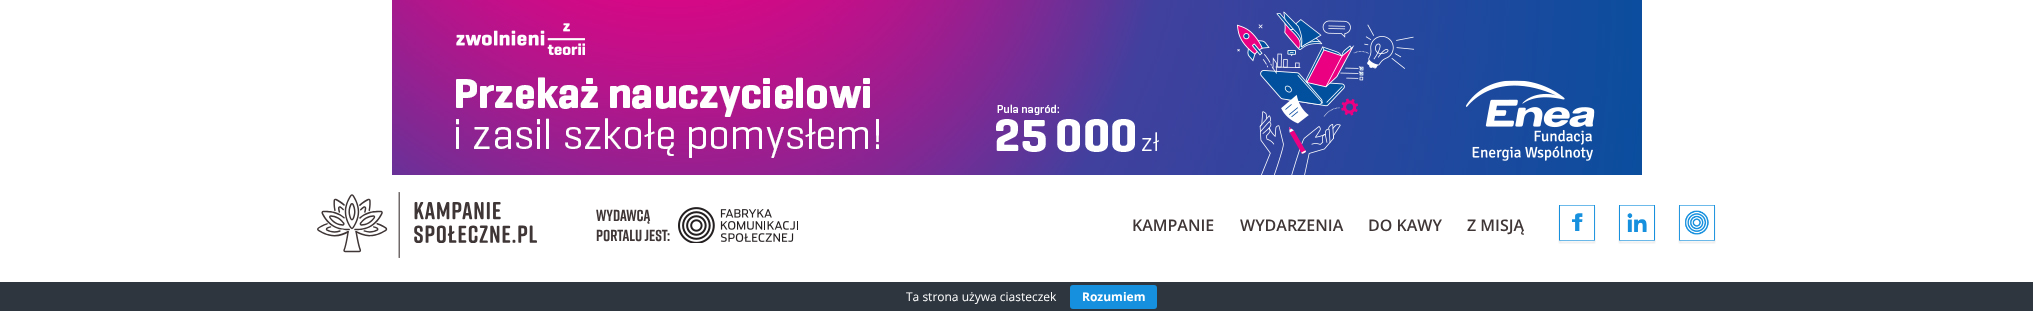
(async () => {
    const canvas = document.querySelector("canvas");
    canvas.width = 2033;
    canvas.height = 311;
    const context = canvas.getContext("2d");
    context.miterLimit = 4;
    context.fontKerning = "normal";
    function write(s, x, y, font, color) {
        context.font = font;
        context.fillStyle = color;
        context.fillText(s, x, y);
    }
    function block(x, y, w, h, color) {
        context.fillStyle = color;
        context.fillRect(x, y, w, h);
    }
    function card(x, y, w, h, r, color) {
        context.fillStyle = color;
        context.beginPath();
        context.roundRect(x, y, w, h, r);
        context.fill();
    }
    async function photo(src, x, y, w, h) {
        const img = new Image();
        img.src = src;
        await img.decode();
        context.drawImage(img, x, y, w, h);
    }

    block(0, 0, 2033, 311, "rgb(255, 255, 255)");
    await photo("media/1.png", 392, 0, 1250, 175);
    await photo("media/2.png", 317, 192, 220, 66);
    write("WYDAWCĄ", 596, 221, "bold 16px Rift", "rgb(63, 54, 54)");
    write("PORTALU JEST:", 596, 241, "bold 16px Rift", "rgb(63, 54, 54)");
    await photo("media/3.png", 678, 207, 120, 36);
    write("KAMPANIE", 1132, 231, "600 16px Open Sans", "rgb(63, 54, 54)");
    write("WYDARZENIA", 1240, 231, "600 16px Open Sans", "rgb(63, 54, 54)");
    write("DO KAWY", 1368, 231, "600 16px Open Sans", "rgb(63, 54, 54)");
    write("Z MISJĄ", 1467, 231, "600 16px Open Sans", "rgb(63, 54, 54)");
    await photo("media/4.png", 1558, 205, 38, 39);
    await photo("media/5.png", 1618, 205, 38, 39);
    await photo("media/6.png", 1678, 205, 38, 39);
    block(0, 282, 2033, 29, "rgb(46, 54, 63)");
    write("Ta strona używa ciasteczek", 906, 301, "12px Open Sans", "rgb(255, 255, 255)");
    card(1070, 285, 87, 24, 3, "rgb(22, 144, 222)");
    write("Rozumiem", 1082, 301, "bold 12px Open Sans", "rgb(255, 255, 255)");
})();
